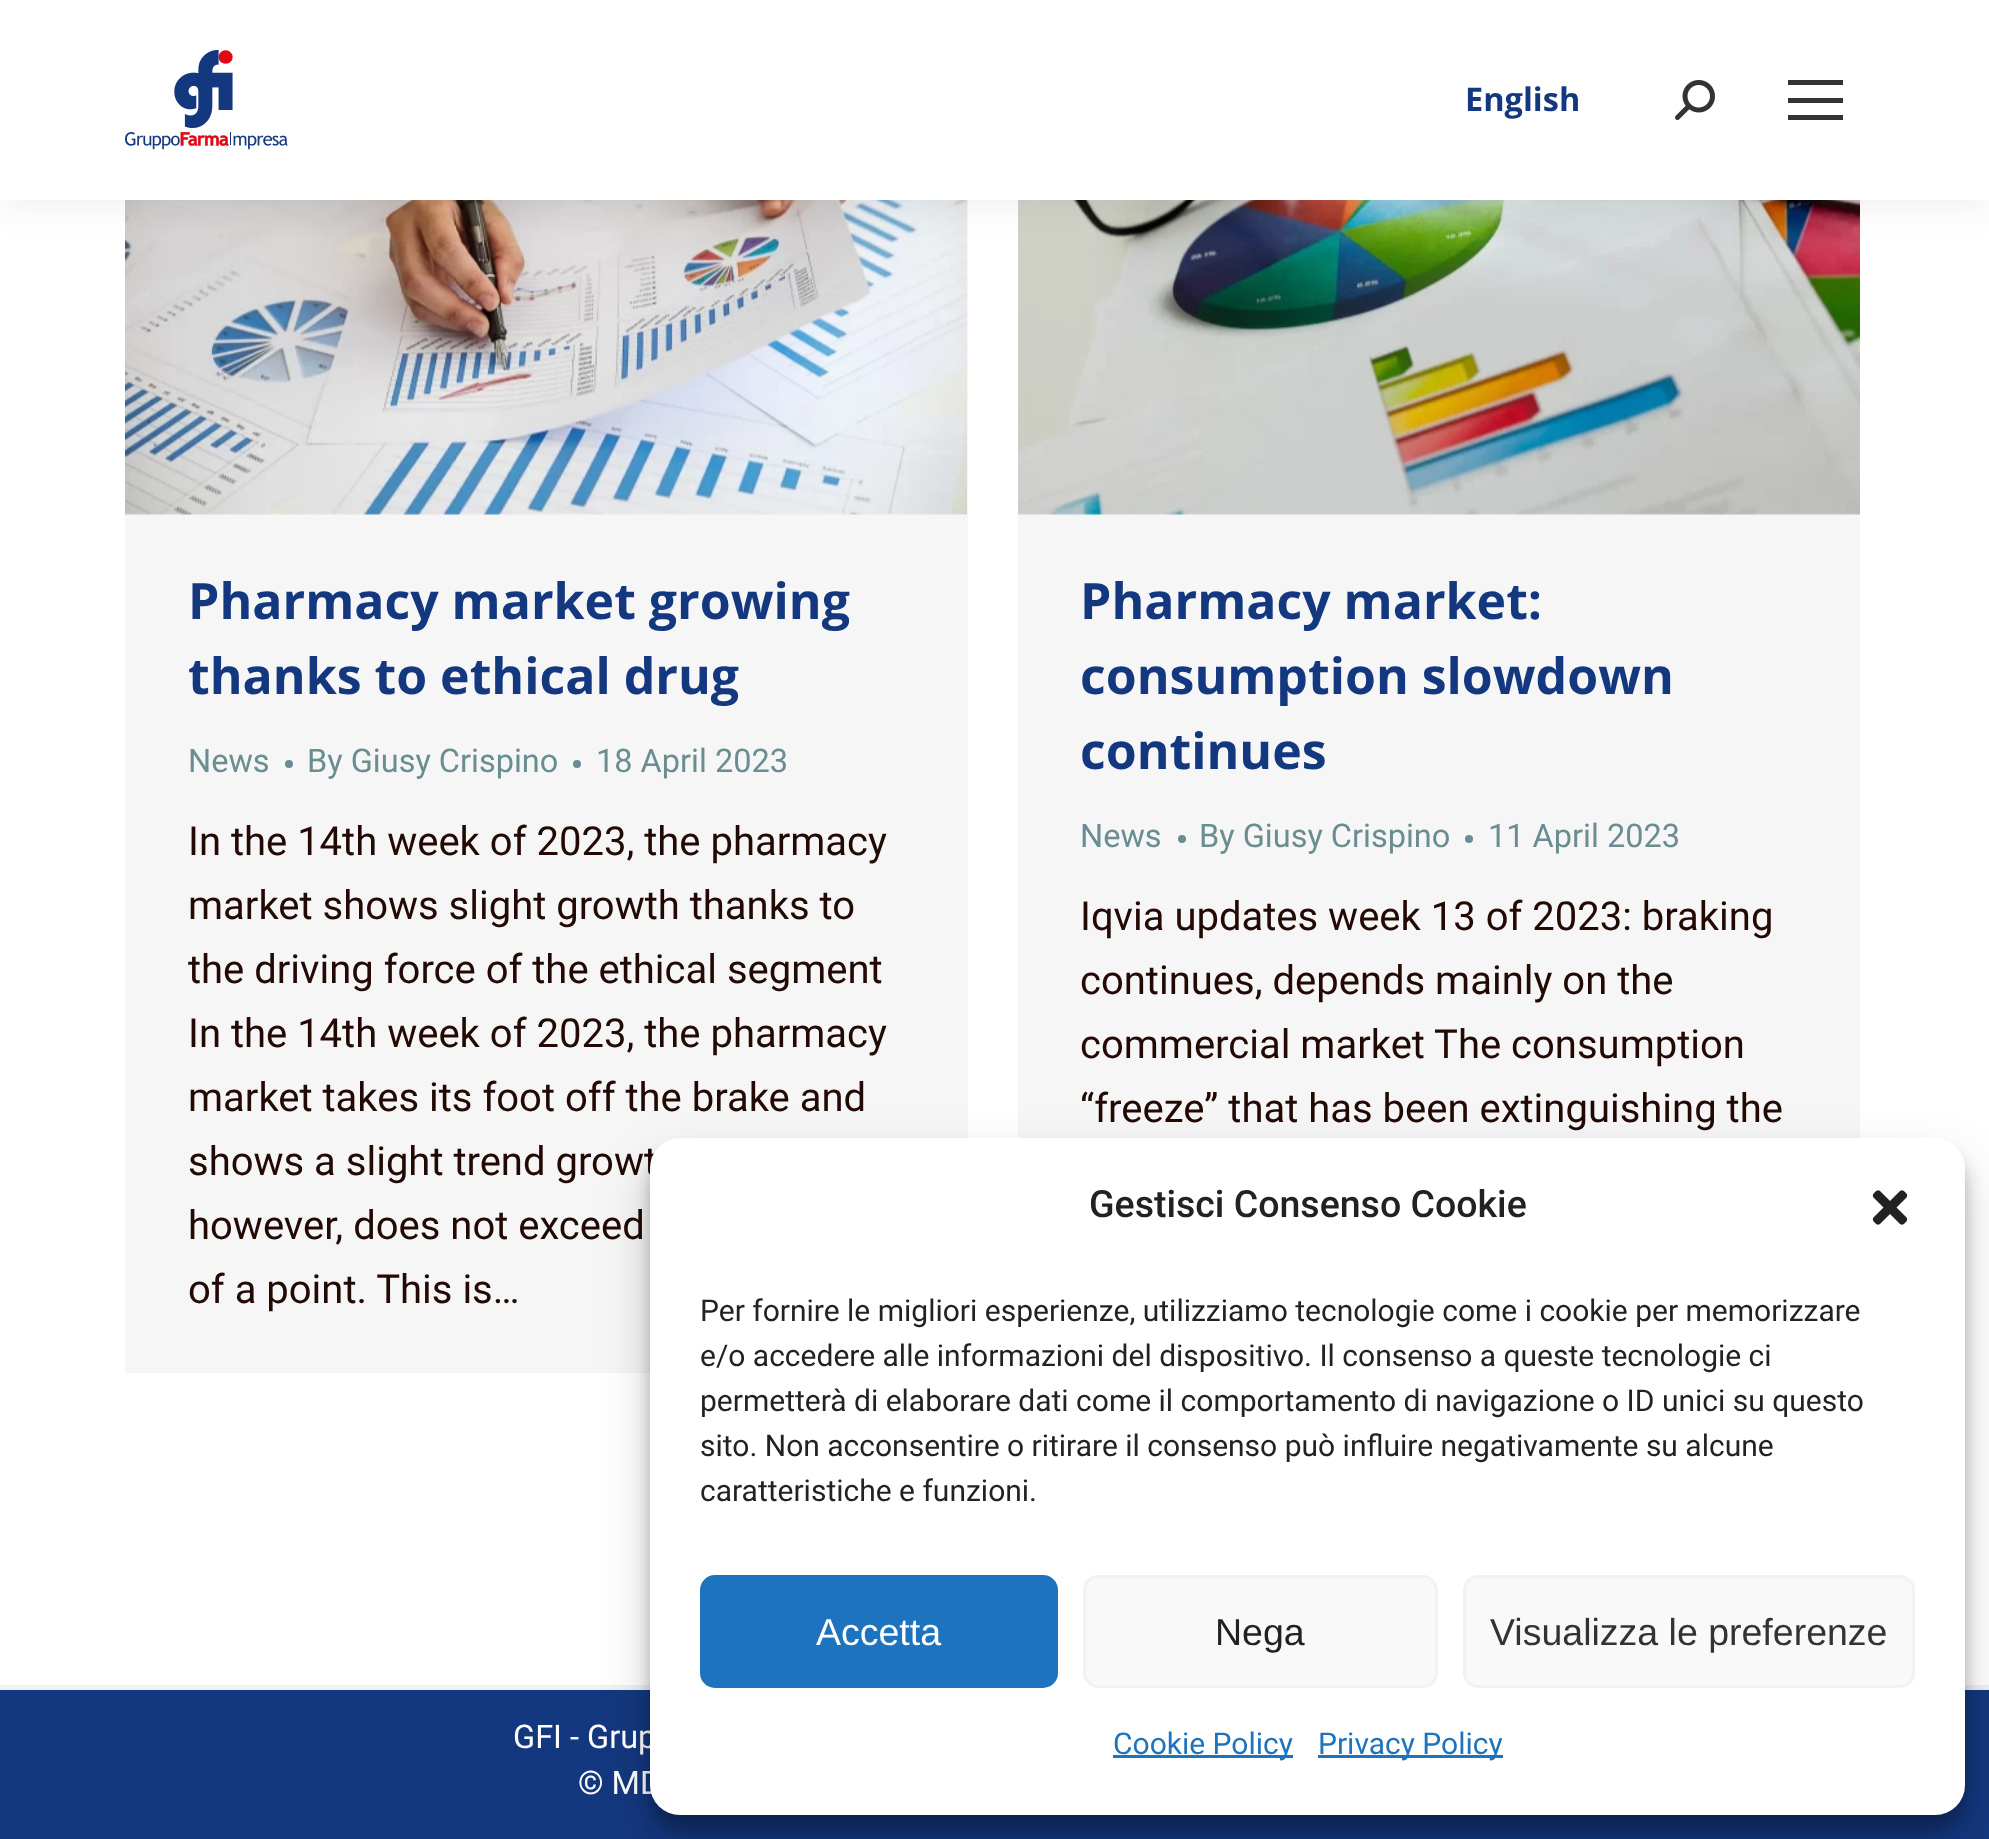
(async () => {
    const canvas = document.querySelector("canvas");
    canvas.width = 1989;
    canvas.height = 1839;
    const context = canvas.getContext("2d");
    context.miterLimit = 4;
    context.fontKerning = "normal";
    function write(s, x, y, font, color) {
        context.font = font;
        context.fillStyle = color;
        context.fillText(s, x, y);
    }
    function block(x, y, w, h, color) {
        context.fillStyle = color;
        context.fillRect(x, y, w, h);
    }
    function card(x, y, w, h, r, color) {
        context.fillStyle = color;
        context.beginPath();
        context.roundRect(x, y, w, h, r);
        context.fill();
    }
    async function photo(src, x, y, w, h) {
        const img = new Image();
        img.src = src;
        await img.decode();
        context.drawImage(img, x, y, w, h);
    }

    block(0, 0, 1989, 1839, "rgb(255, 255, 255)");
    block(125, 200, 843, 1173, "rgb(246, 246, 246)");
    await photo("media/3.png", 125, 200, 842, 315);
    block(1018, 513, 842, 625, "rgb(246, 246, 246)");
    await photo("media/4.png", 1018, 200, 842, 315);
    context.fillStyle = "rgba(0, 0, 0, 0.07)";
    context.filter = "blur(19px)";
    context.beginPath();
    context.rect(-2, -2, 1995, 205);
    context.fill();
    context.filter = "none";
    block(0, 0, 1989, 200, "rgb(255, 255, 255)");
    await photo("media/1.png", 125, 50, 163, 100);
    write("English", 1465, 111, "bold 32.5px Open Sans", "rgb(20, 56, 127)");
    await photo("media/2.png", 1675, 80, 40, 40);
    block(1788, 80, 55, 5, "rgb(51, 51, 51)");
    block(1788, 98, 55, 5, "rgb(51, 51, 51)");
    block(1788, 115, 55, 5, "rgb(51, 51, 51)");
    write("Pharmacy market growing", 188, 619, "bold 50px Open Sans", "rgb(20, 56, 127)");
    write("thanks to ethical drug", 188, 694, "bold 50px Open Sans", "rgb(20, 56, 127)");
    write("News", 188, 772, "32.5px Roboto", "rgb(106, 141, 146)");
    context.beginPath();
    context.arc(289, 764, 4, 0, Math.PI * 2);
    context.fill();
    write("By Giusy Crispino", 307, 772, "32.5px Roboto", "rgb(106, 141, 146)");
    context.beginPath();
    context.arc(577, 764, 4, 0, Math.PI * 2);
    context.fill();
    write("18 April 2023", 596, 772, "32.5px Roboto", "rgb(106, 141, 146)");
    write("In the 14th week of 2023, the pharmacy", 188, 855, "40px Roboto", "rgb(35, 9, 3)");
    write("market shows slight growth thanks to", 188, 919, "40px Roboto", "rgb(35, 9, 3)");
    write("the driving force of the ethical segment", 188, 983, "40px Roboto", "rgb(35, 9, 3)");
    write("In the 14th week of 2023, the pharmacy", 188, 1047, "40px Roboto", "rgb(35, 9, 3)");
    write("market takes its foot off the brake and", 188, 1111, "40px Roboto", "rgb(35, 9, 3)");
    write("shows a slight trend growt", 188, 1175, "40px Roboto", "rgb(35, 9, 3)");
    write("however, does not exceed", 188, 1239, "40px Roboto", "rgb(35, 9, 3)");
    write("of a point. This is…", 188, 1303, "40px Roboto", "rgb(35, 9, 3)");
    write("Pharmacy market:", 1080, 619, "bold 50px Open Sans", "rgb(20, 56, 127)");
    write("consumption slowdown", 1080, 694, "bold 50px Open Sans", "rgb(20, 56, 127)");
    write("continues", 1080, 769, "bold 50px Open Sans", "rgb(20, 56, 127)");
    write("News", 1080, 847, "32.5px Roboto", "rgb(106, 141, 146)");
    context.beginPath();
    context.arc(1182, 839, 4, 0, Math.PI * 2);
    context.fill();
    write("By Giusy Crispino", 1199, 847, "32.5px Roboto", "rgb(106, 141, 146)");
    context.beginPath();
    context.arc(1469, 839, 4, 0, Math.PI * 2);
    context.fill();
    write("11 April 2023", 1488, 847, "32.5px Roboto", "rgb(106, 141, 146)");
    write("Iqvia updates week 13 of 2023: braking", 1080, 930, "40px Roboto", "rgb(35, 9, 3)");
    write("continues, depends mainly on the", 1080, 994, "40px Roboto", "rgb(35, 9, 3)");
    write("commercial market The consumption", 1080, 1058, "40px Roboto", "rgb(35, 9, 3)");
    write("“freeze” that has been extinguishing the", 1080, 1122, "40px Roboto", "rgb(35, 9, 3)");
    block(0, 1685, 1989, 5, "rgb(239, 241, 243)");
    block(0, 1690, 1989, 149, "rgb(20, 56, 127)");
    write("GFI - Grup", 513, 1748, "32.5px Roboto", "rgb(255, 255, 255)");
    write("© MD", 578, 1794, "32.5px Roboto", "rgb(255, 255, 255)");
    context.fillStyle = "rgba(0, 0, 0, 0.23)";
    context.filter = "blur(7.5px)";
    context.beginPath();
    context.roundRect(650, 1153, 1315, 677, 30);
    context.fill();
    context.filter = "none";
    context.fillStyle = "rgba(0, 0, 0, 0.19)";
    context.filter = "blur(25px)";
    context.beginPath();
    context.roundRect(650, 1163, 1315, 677, 30);
    context.fill();
    context.filter = "none";
    card(650, 1138, 1315, 677, 30, "rgb(255, 255, 255)");
    write("Gestisci Consenso Cookie", 1089, 1217, "500 37.5px Roboto", "rgb(34, 34, 34)");
    await photo("media/5.png", 1872, 1190, 36, 35);
    write("Per fornire le migliori esperienze, utilizziamo tecnologie come i cookie per memorizzare", 700, 1321, "30px Roboto", "rgb(34, 34, 34)");
    write("e/o accedere alle informazioni del dispositivo. Il consenso a queste tecnologie ci", 700, 1366, "30px Roboto", "rgb(34, 34, 34)");
    write("permetterà di elaborare dati come il comportamento di navigazione o ID unici su questo", 700, 1411, "30px Roboto", "rgb(34, 34, 34)");
    write("sito. Non acconsentire o ritirare il consenso può influire negativamente su alcune", 700, 1456, "30px Roboto", "rgb(34, 34, 34)");
    write("caratteristiche e funzioni.", 700, 1501, "30px Roboto", "rgb(34, 34, 34)");
    context.fillStyle = "rgb(30, 115, 190)";
    context.beginPath();
    context.roundRect(701.5, 1576.5, 355, 110, 13.5);
    context.fill();
    context.strokeStyle = "rgb(30, 115, 190)";
    context.lineWidth = 3;
    context.stroke();
    write("Accetta", 816, 1645, "37.5px Liberation Sans", "rgb(255, 255, 255)");
    context.fillStyle = "rgb(249, 249, 249)";
    context.beginPath();
    context.roundRect(1084.5, 1576.5, 352, 110, 13.5);
    context.fill();
    context.strokeStyle = "rgb(242, 242, 242)";
    context.stroke();
    write("Nega", 1215, 1645, "37.5px Liberation Sans", "rgb(34, 34, 34)");
    context.fillStyle = "rgb(249, 249, 249)";
    context.beginPath();
    context.roundRect(1464.5, 1576.5, 449, 110, 13.5);
    context.fill();
    context.stroke();
    write("Visualizza le preferenze", 1490, 1645, "37.5px Liberation Sans", "rgb(51, 51, 51)");
    block(1113, 1755, 180, 3, "rgb(30, 115, 190)");
    write("Cookie Policy", 1113, 1754, "30px Roboto", "rgb(30, 115, 190)");
    block(1318, 1755, 185, 3, "rgb(30, 115, 190)");
    write("Privacy Policy", 1318, 1754, "30px Roboto", "rgb(30, 115, 190)");
})();
